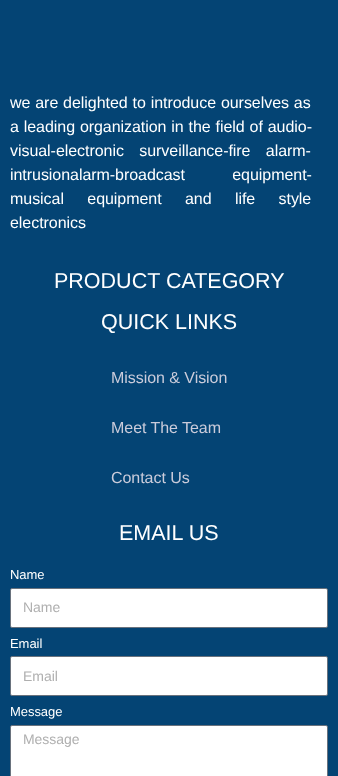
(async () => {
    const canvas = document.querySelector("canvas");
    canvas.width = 338;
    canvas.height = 776;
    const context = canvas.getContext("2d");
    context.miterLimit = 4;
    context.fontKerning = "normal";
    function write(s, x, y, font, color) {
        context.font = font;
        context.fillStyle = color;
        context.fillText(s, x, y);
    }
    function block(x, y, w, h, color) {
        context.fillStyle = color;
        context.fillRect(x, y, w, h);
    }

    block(0, 0, 338, 776, "rgb(4, 68, 116)");
    context.letterSpacing = "-0.05px";
    context.wordSpacing = "0.5px";
    write("we are delighted to introduce ourselves as", 10, 108, "16px Liberation Sans", "rgb(255, 255, 255)");
    write("a leading organization in the field of audio-", 10, 132, "16px Liberation Sans", "rgb(255, 255, 255)");
    context.wordSpacing = "11px";
    write("visual-electronic surveillance-fire alarm-", 10, 156, "16px Liberation Sans", "rgb(255, 255, 255)");
    context.wordSpacing = "43px";
    write("intrusionalarm-broadcast equipment-", 10, 180, "16px Liberation Sans", "rgb(255, 255, 255)");
    context.wordSpacing = "19px";
    write("musical equipment and life style", 10, 204, "16px Liberation Sans", "rgb(255, 255, 255)");
    context.wordSpacing = "0px";
    write("electronics", 10, 228, "16px Liberation Sans", "rgb(255, 255, 255)");
    context.letterSpacing = "0px";
    write("PRODUCT CATEGORY", 54, 288, "21.5px Liberation Sans", "rgb(255, 255, 255)");
    write("QUICK LINKS", 101, 329, "21.5px Liberation Sans", "rgb(255, 255, 255)");
    context.letterSpacing = "-0.05px";
    write("Mission & Vision", 111, 383, "16px Liberation Sans", "rgb(203, 204, 219)");
    write("Meet The Team", 111, 433, "16px Liberation Sans", "rgb(203, 204, 219)");
    write("Contact Us", 111, 483, "16px Liberation Sans", "rgb(203, 204, 219)");
    context.letterSpacing = "0px";
    write("EMAIL US", 119, 540, "21.5px Liberation Sans", "rgb(255, 255, 255)");
    context.letterSpacing = "-0.05px";
    write("Name", 10, 579, "13px Liberation Sans", "rgb(255, 255, 255)");
    context.beginPath();
    context.roundRect(10.5, 588.5, 317, 39, 1.5);
    context.fill();
    context.strokeStyle = "rgb(105, 114, 125)";
    context.stroke();
    write("Name", 23, 612, "14px Liberation Sans", "rgb(175, 175, 175)");
    write("Email", 10, 648, "13px Liberation Sans", "rgb(255, 255, 255)");
    context.beginPath();
    context.roundRect(10.5, 656.5, 317, 39, 1.5);
    context.fill();
    context.stroke();
    write("Email", 23, 681, "14px Liberation Sans", "rgb(175, 175, 175)");
    write("Message", 10, 716, "13px Liberation Sans", "rgb(255, 255, 255)");
    context.beginPath();
    context.roundRect(10.5, 725.5, 317, 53, 1.5);
    context.fill();
    context.stroke();
    write("Message", 23, 744, "14px Liberation Sans", "rgb(175, 175, 175)");
})();
